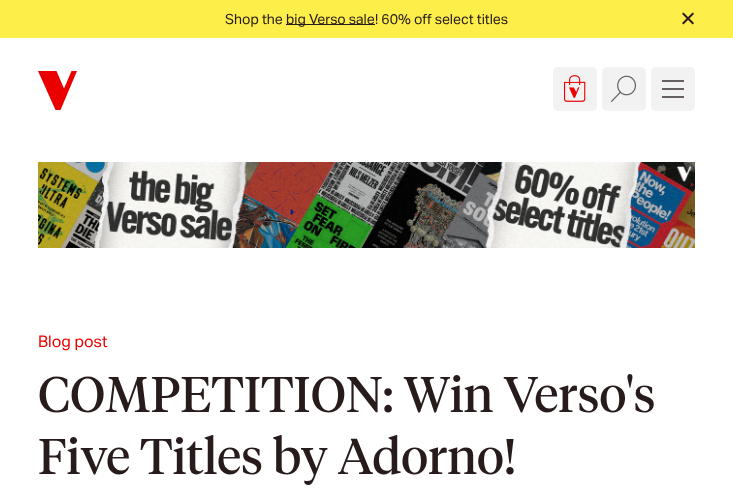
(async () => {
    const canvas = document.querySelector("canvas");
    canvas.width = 733;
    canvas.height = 493;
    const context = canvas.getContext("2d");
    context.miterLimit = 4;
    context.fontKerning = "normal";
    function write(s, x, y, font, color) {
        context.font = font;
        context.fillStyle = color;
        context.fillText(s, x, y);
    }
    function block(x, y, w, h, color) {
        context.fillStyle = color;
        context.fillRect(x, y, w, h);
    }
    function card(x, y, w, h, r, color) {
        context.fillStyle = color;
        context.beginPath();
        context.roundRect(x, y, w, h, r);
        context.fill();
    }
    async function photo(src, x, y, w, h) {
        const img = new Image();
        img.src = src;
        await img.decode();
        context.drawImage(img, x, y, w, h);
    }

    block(0, 0, 733, 493, "rgb(255, 255, 255)");
    block(0, 0, 733, 38, "rgb(253, 238, 73)");
    write("Shop the", 225, 24, "14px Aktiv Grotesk", "rgb(39, 27, 27)");
    block(286, 24, 89, 1, "rgb(39, 27, 27)");
    write("big Verso sale", 286, 24, "14px Aktiv Grotesk", "rgb(39, 27, 27)");
    write("! 60% off select titles", 375, 24, "14px Aktiv Grotesk", "rgb(39, 27, 27)");
    await photo("media/1.png", 682, 12, 12, 13);
    context.fillStyle = "rgb(235, 0, 0)";
    context.beginPath();
    context.moveTo(38, 71);
    context.lineTo(56.5, 71);
    context.lineTo(64, 88.5);
    context.lineTo(71.5, 71);
    context.lineTo(77, 71);
    context.lineTo(60.5, 110);
    context.lineTo(55.5, 110);
    context.closePath();
    context.fill();
    card(553, 67, 44, 44, 5, "rgb(242, 242, 242)");
    await photo("media/2.png", 564, 75, 22, 27);
    card(602, 67, 44, 44, 5, "rgb(242, 242, 242)");
    await photo("media/3.png", 610, 75, 26, 27);
    card(651, 67, 44, 44, 5, "rgb(242, 242, 242)");
    block(662, 80, 22, 2, "rgb(102, 96, 96)");
    block(662, 88, 22, 2, "rgb(102, 96, 96)");
    block(662, 96, 22, 2, "rgb(102, 96, 96)");
    await photo("media/4.png", 38, 162, 657, 86);
    write("Blog post", 38, 347, "16px Aktiv Grotesk", "rgb(235, 0, 0)");
    write("COMPETITION: Win Verso's", 38, 412, "49.75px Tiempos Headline", "rgb(39, 27, 27)");
    write("Five Titles by Adorno!", 38, 474, "49.75px Tiempos Headline", "rgb(39, 27, 27)");
})();
